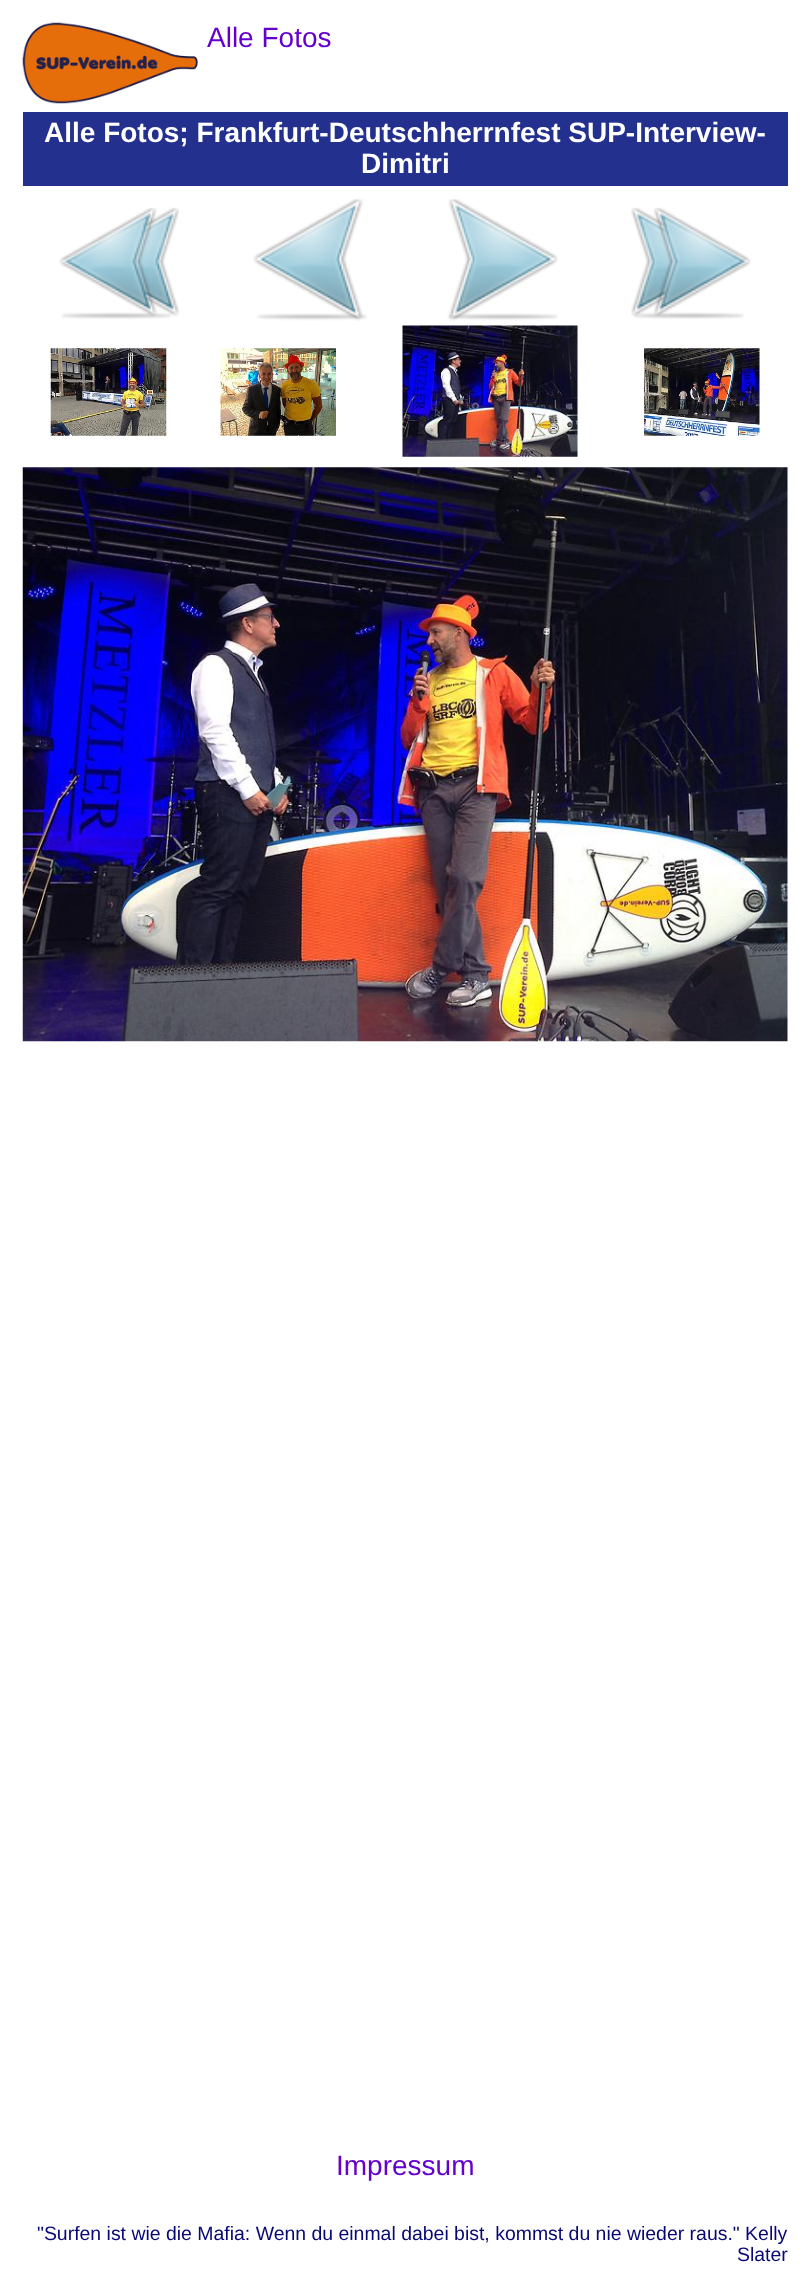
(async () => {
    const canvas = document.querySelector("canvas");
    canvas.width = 809;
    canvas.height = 2286;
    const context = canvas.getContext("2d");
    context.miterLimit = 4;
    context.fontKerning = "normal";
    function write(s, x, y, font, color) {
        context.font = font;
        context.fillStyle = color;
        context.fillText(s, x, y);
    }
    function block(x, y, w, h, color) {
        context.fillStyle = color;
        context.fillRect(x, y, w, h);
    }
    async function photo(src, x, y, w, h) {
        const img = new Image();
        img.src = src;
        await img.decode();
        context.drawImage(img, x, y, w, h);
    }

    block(0, 0, 809, 2286, "rgb(255, 255, 255)");
    await photo("media/1.png", 22, 22, 176, 82);
    write("Alle Fotos", 207, 47, "28px Liberation Sans", "rgb(102, 0, 204)");
    block(23, 112, 765, 74, "rgb(35, 48, 142)");
    write("Alle Fotos; Frankfurt-Deutschherrnfest SUP-Interview-", 44, 142, "bold 28px Liberation Sans", "rgb(255, 255, 255)");
    write("Dimitri", 361, 173, "bold 28px Liberation Sans", "rgb(255, 255, 255)");
    await photo("media/2.png", 59, 207, 120, 112);
    await photo("media/3.png", 253, 199, 114, 122);
    await photo("media/4.png", 447, 199, 111, 122);
    await photo("media/5.png", 631, 207, 120, 112);
    await photo("media/6.png", 50, 348, 117, 88);
    await photo("media/7.png", 220, 348, 116, 88);
    await photo("media/8.png", 402, 325, 176, 132);
    await photo("media/9.png", 644, 348, 116, 88);
    await photo("media/10.png", 22, 467, 766, 575);
    write("Impressum", 336, 2175, "28px Liberation Sans", "rgb(102, 0, 204)");
    write("\"Surfen ist wie die Mafia: Wenn du einmal dabei bist, kommst du nie wieder raus.\" Kelly", 37, 2240, "19.45px Liberation Sans", "rgb(8, 8, 117)");
    write("Slater", 737, 2261, "19.45px Liberation Sans", "rgb(8, 8, 117)");
})();
